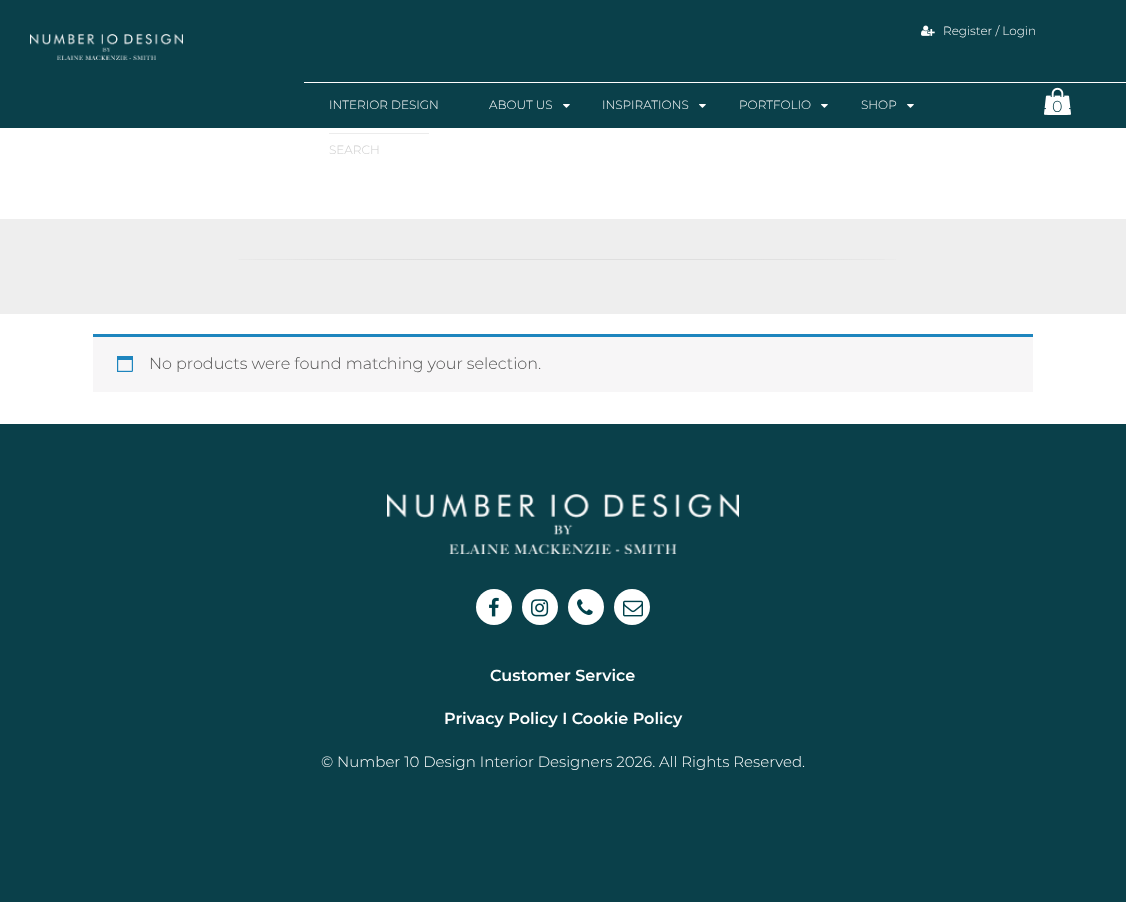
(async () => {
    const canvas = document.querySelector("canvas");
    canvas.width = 1126;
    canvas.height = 914;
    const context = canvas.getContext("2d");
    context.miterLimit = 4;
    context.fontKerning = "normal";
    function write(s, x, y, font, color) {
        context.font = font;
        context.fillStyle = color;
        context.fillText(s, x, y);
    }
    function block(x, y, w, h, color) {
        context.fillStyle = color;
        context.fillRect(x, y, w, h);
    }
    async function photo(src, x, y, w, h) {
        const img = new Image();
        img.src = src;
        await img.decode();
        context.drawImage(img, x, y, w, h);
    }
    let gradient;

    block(0, 0, 1126, 914, "rgb(255, 255, 255)");
    block(0, 0, 1126, 128, "rgb(10, 64, 74)");
    await photo("media/1.png", 30, 34, 153, 26);
    await photo("media/2.png", 921, 25, 14, 11);
    write("Register / Login", 943, 35, "300 12px Montserrat", "rgb(255, 255, 255)");
    block(304, 82, 822, 1, "rgb(255, 255, 255)");
    write("INTERIOR DESIGN", 329, 109, "300 12px Montserrat", "rgb(255, 255, 255)");
    write("ABOUT US", 489, 109, "300 12px Montserrat", "rgb(255, 255, 255)");
    await photo("media/3.png", 563, 104, 7, 4);
    write("INSPIRATIONS", 602, 109, "300 12px Montserrat", "rgb(255, 255, 255)");
    await photo("media/3.png", 699, 104, 7, 4);
    write("PORTFOLIO", 739, 109, "300 12px Montserrat", "rgb(255, 255, 255)");
    await photo("media/3.png", 821, 104, 7, 4);
    write("SHOP", 861, 109, "300 12px Montserrat", "rgb(255, 255, 255)");
    await photo("media/3.png", 907, 104, 7, 4);
    await photo("media/4.png", 1044, 87, 27, 28);
    context.beginPath();
    context.roundRect(1046, 97, 23, 18, [0, 0, 3, 3]);
    context.fill();
    write("0", 1052, 112, "300 16px Montserrat", "rgb(10, 64, 74)");
    block(329, 133, 100, 1, "rgb(236, 236, 236)");
    write("SEARCH", 329, 154, "300 12px Montserrat", "rgb(204, 204, 204)");
    block(0, 219, 1126, 95, "rgb(238, 238, 238)");
    gradient = context.createLinearGradient(187, 260, 939, 260);
    gradient.addColorStop(0.01, "rgb(238, 238, 238)");
    gradient.addColorStop(0.34, "rgb(224, 224, 224)");
    gradient.addColorStop(0.37, "rgb(223, 223, 223)");
    gradient.addColorStop(0.66, "rgb(223, 223, 223)");
    gradient.addColorStop(0.68, "rgb(224, 224, 224)");
    gradient.addColorStop(1, "rgb(238, 238, 238)");
    context.fillStyle = gradient;
    context.fillRect(239, 259, 657, 1);
    gradient = context.createLinearGradient(187, 260, 939, 260);
    gradient.addColorStop(0.01, "rgba(223, 223, 223, 0)");
    gradient.addColorStop(0.34, "rgba(223, 223, 223, 0.92)");
    gradient.addColorStop(0.37, "rgb(223, 223, 223)");
    gradient.addColorStop(0.66, "rgb(223, 223, 223)");
    gradient.addColorStop(0.68, "rgba(223, 223, 223, 0.94)");
    gradient.addColorStop(1, "rgba(223, 223, 223, 0)");
    context.fillStyle = gradient;
    context.fillRect(238, 259, 647, 1);
    block(93, 337, 940, 55, "rgb(247, 246, 247)");
    block(93, 334, 940, 3, "rgb(30, 133, 190)");
    await photo("media/5.png", 117, 356, 16, 16);
    write("No products were found matching your selection.", 149, 369, "300 16px Montserrat", "rgb(81, 81, 81)");
    block(0, 424, 1126, 478, "rgb(10, 64, 74)");
    await photo("media/6.png", 387, 494, 352, 60);
    context.fillStyle = "rgb(255, 255, 255)";
    context.beginPath();
    context.arc(494, 607, 18, 0, Math.PI * 2);
    context.fill();
    await photo("media/7.png", 489, 597, 10, 20);
    context.beginPath();
    context.arc(540, 607, 18, 0, Math.PI * 2);
    context.fill();
    await photo("media/8.png", 531, 599, 18, 18);
    context.beginPath();
    context.arc(586, 607, 18, 0, Math.PI * 2);
    context.fill();
    await photo("media/9.png", 577, 599, 16, 16);
    context.beginPath();
    context.arc(632, 607, 18, 0, Math.PI * 2);
    context.fill();
    await photo("media/10.png", 623, 600, 20, 17);
    write("Customer Service", 490, 681, "600 16px Montserrat", "rgb(255, 255, 255)");
    write("Privacy Policy I Cookie Policy", 444, 724, "600 16px Montserrat", "rgb(255, 255, 255)");
    write("© Number 10 Design Interior Designers 2026. All Rights Reserved.", 321, 767, "300 15px Montserrat", "rgb(255, 255, 255)");
})();
